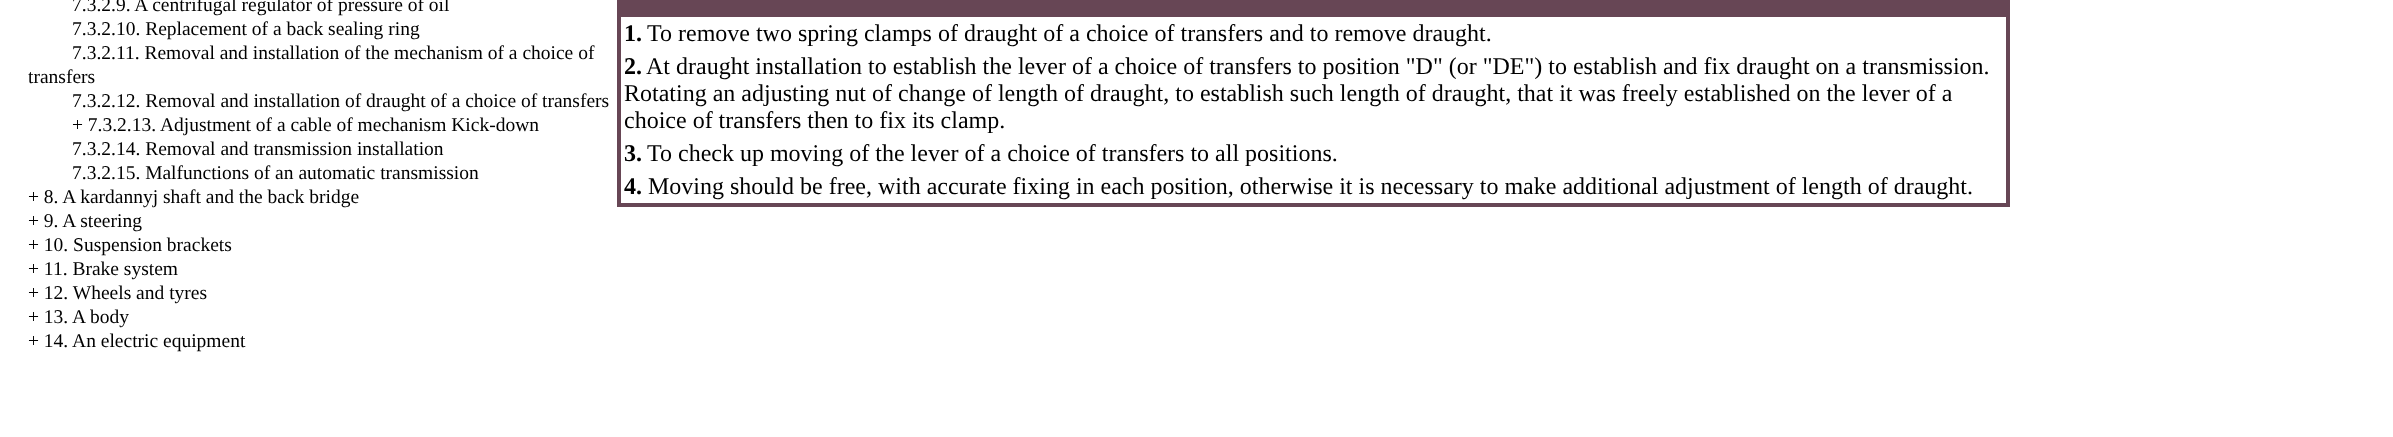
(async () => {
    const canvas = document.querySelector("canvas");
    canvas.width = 2393;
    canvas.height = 437;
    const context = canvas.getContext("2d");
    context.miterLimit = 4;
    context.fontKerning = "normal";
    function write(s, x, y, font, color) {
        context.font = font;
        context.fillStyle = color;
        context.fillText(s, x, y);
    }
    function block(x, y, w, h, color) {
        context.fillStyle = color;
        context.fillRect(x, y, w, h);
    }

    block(0, 0, 2393, 437, "rgb(255, 255, 255)");
    write("7.3.2.9. A centrifugal regulator of pressure of oil", 72, 11, "19.5px Liberation Serif", "rgb(0, 0, 0)");
    write("7.3.2.10. Replacement of a back sealing ring", 72, 35, "19.5px Liberation Serif", "rgb(0, 0, 0)");
    write("7.3.2.11. Removal and installation of the mechanism of a choice of", 72, 59, "19.5px Liberation Serif", "rgb(0, 0, 0)");
    write("transfers", 28, 83, "19.5px Liberation Serif", "rgb(0, 0, 0)");
    write("7.3.2.12. Removal and installation of draught of a choice of transfers", 72, 107, "19.5px Liberation Serif", "rgb(0, 0, 0)");
    write("+ 7.3.2.13. Adjustment of a cable of mechanism Kick-down", 72, 131, "19.5px Liberation Serif", "rgb(0, 0, 0)");
    write("7.3.2.14. Removal and transmission installation", 72, 155, "19.5px Liberation Serif", "rgb(0, 0, 0)");
    write("7.3.2.15. Malfunctions of an automatic transmission", 72, 179, "19.5px Liberation Serif", "rgb(0, 0, 0)");
    write("+ 8. A kardannyj shaft and the back bridge", 28, 203, "19.5px Liberation Serif", "rgb(0, 0, 0)");
    write("+ 9. A steering", 28, 227, "19.5px Liberation Serif", "rgb(0, 0, 0)");
    write("+ 10. Suspension brackets", 28, 251, "19.5px Liberation Serif", "rgb(0, 0, 0)");
    write("+ 11. Brake system", 28, 275, "19.5px Liberation Serif", "rgb(0, 0, 0)");
    write("+ 12. Wheels and tyres", 28, 299, "19.5px Liberation Serif", "rgb(0, 0, 0)");
    write("+ 13. A body", 28, 323, "19.5px Liberation Serif", "rgb(0, 0, 0)");
    write("+ 14. An electric equipment", 28, 347, "19.5px Liberation Serif", "rgb(0, 0, 0)");
    block(617, 0, 1393, 207, "rgb(103, 70, 85)");
    block(621, 17, 1385, 186, "rgb(255, 255, 255)");
    write("1.", 624, 41, "bold 24px Liberation Serif", "rgb(0, 0, 0)");
    write("To remove two spring clamps of draught of a choice of transfers and to remove draught.", 647, 41, "24px Liberation Serif", "rgb(0, 0, 0)");
    write("2.", 624, 74, "bold 24px Liberation Serif", "rgb(0, 0, 0)");
    write("At draught installation to establish the lever of a choice of transfers to position \"D\" (or \"DE\") to establish and fix draught on a transmission.", 646, 74, "24px Liberation Serif", "rgb(0, 0, 0)");
    write("Rotating an adjusting nut of change of length of draught, to establish such length of draught, that it was freely established on the lever of a", 624, 101, "24px Liberation Serif", "rgb(0, 0, 0)");
    write("choice of transfers then to fix its clamp.", 624, 128, "24px Liberation Serif", "rgb(0, 0, 0)");
    write("3.", 624, 161, "bold 24px Liberation Serif", "rgb(0, 0, 0)");
    write("To check up moving of the lever of a choice of transfers to all positions.", 647, 161, "24px Liberation Serif", "rgb(0, 0, 0)");
    write("4.", 624, 194, "bold 24px Liberation Serif", "rgb(0, 0, 0)");
    write("Moving should be free, with accurate fixing in each position, otherwise it is necessary to make additional adjustment of length of draught.", 648, 194, "24px Liberation Serif", "rgb(0, 0, 0)");
})();
